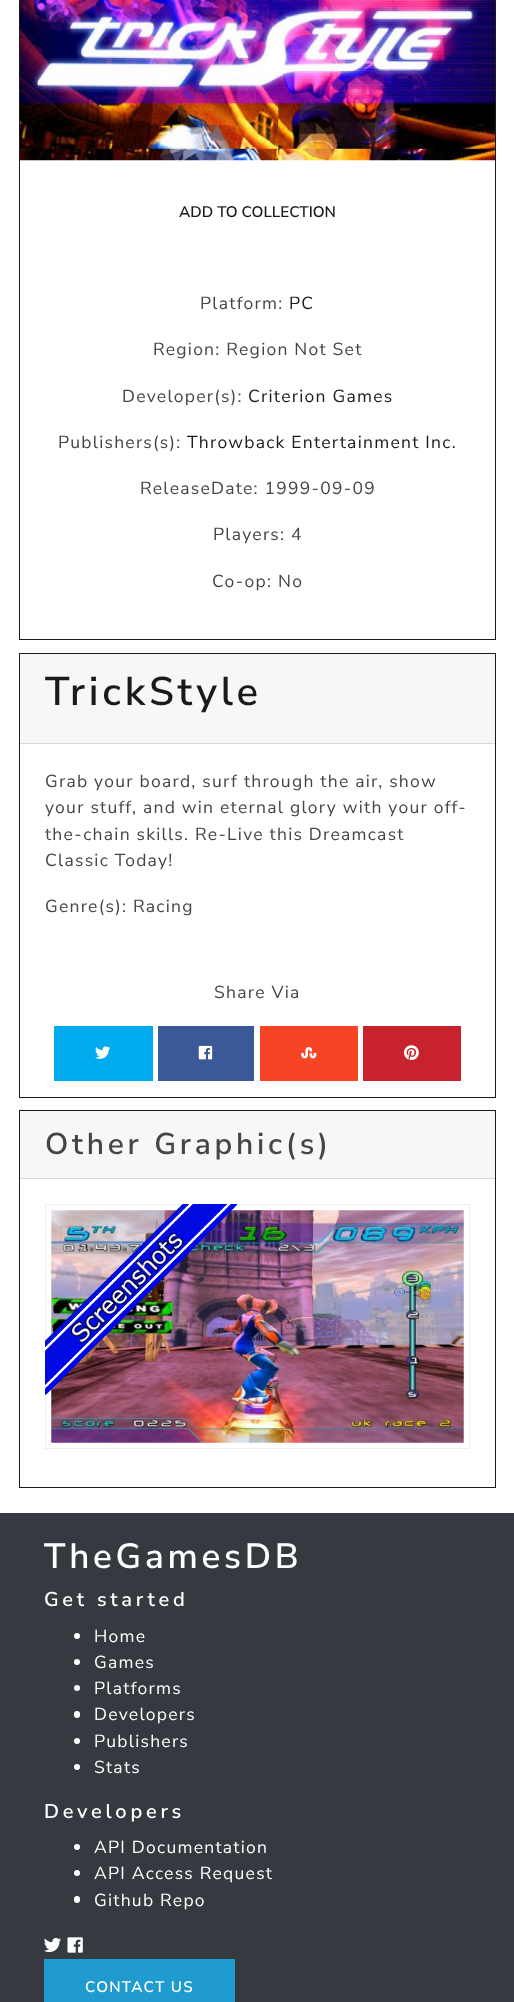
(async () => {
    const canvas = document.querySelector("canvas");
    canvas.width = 514;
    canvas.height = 2002;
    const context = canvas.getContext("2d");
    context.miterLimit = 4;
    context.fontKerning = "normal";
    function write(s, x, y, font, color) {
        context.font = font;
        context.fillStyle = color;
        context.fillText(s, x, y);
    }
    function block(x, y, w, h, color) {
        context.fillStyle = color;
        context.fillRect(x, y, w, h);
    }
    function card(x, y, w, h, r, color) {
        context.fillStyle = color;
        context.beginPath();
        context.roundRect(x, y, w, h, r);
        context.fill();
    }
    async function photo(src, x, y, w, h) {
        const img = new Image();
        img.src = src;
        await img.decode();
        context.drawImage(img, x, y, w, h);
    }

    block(0, 0, 514, 2002, "rgb(255, 255, 255)");
    context.strokeStyle = "rgb(26, 26, 26)";
    context.strokeRect(19.5, -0.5, 476, 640);
    await photo("media/1.png", 20, 0, 475, 161);
    write("ADD TO COLLECTION", 179, 217, "600 15.25px Nunito Sans", "rgb(26, 26, 26)");
    context.letterSpacing = "1.25px";
    write("Platform:", 200, 309, "17.5px Nunito Sans", "rgb(66, 70, 73)");
    write("PC", 289, 309, "17.5px Nunito Sans", "rgb(26, 26, 26)");
    write("Region: Region Not Set", 153, 355, "17.5px Nunito Sans", "rgb(66, 70, 73)");
    write("Developer(s):", 122, 402, "17.5px Nunito Sans", "rgb(66, 70, 73)");
    write("Criterion Games", 248, 402, "17.5px Nunito Sans", "rgb(26, 26, 26)");
    write("Publishers(s):", 58, 448, "17.5px Nunito Sans", "rgb(66, 70, 73)");
    write("Throwback Entertainment Inc.", 187, 448, "17.5px Nunito Sans", "rgb(26, 26, 26)");
    write("ReleaseDate: 1999-09-09", 140, 494, "17.5px Nunito Sans", "rgb(66, 70, 73)");
    write("Players: 4", 213, 540, "17.5px Nunito Sans", "rgb(66, 70, 73)");
    write("Co-op: No", 212, 587, "17.5px Nunito Sans", "rgb(66, 70, 73)");
    context.strokeRect(19.5, 653.5, 476, 444);
    block(20, 654, 475, 89, "rgb(247, 247, 247)");
    block(20, 743, 475, 1, "rgb(216, 216, 216)");
    context.letterSpacing = "3.75px";
    write("TrickStyle", 45, 705, "600 40px Nunito Sans", "rgb(26, 26, 26)");
    context.letterSpacing = "1.25px";
    write("Grab your board, surf through the air, show", 45, 787, "17.5px Nunito Sans", "rgb(66, 70, 73)");
    write("your stuff, and win eternal glory with your off-", 45, 813, "17.5px Nunito Sans", "rgb(66, 70, 73)");
    write("the-chain skills. Re-Live this Dreamcast", 45, 840, "17.5px Nunito Sans", "rgb(66, 70, 73)");
    write("Classic Today!", 45, 866, "17.5px Nunito Sans", "rgb(66, 70, 73)");
    write("Genre(s): Racing", 45, 912, "17.5px Nunito Sans", "rgb(66, 70, 73)");
    write("Share Via", 214, 998, "17.5px Nunito Sans", "rgb(66, 70, 73)");
    block(54, 1026, 99, 55, "rgb(0, 172, 238)");
    await photo("media/2.png", 95, 1046, 16, 13);
    block(158, 1026, 96, 55, "rgb(59, 89, 152)");
    await photo("media/3.png", 198, 1045, 15, 15);
    block(260, 1026, 98, 55, "rgb(247, 68, 37)");
    await photo("media/4.png", 301, 1046, 16, 13);
    block(363, 1026, 98, 55, "rgb(200, 35, 44)");
    await photo("media/5.png", 404, 1045, 15, 16);
    context.strokeRect(19.5, 1110.5, 476, 377);
    block(20, 1111, 475, 67, "rgb(247, 247, 247)");
    block(20, 1178, 475, 1, "rgb(216, 216, 216)");
    context.letterSpacing = "3.75px";
    write("Other Graphic(s)", 45, 1154, "600 30px Nunito Sans", "rgb(66, 70, 73)");
    context.strokeStyle = "rgb(236, 238, 239)";
    context.strokeRect(45.5, 1204.5, 424, 244);
    await photo("media/7.png", 51, 1210, 413, 233);
    await photo("media/6.png", 45, 1204, 192, 191);
    block(0, 1513, 514, 489, "rgb(52, 58, 64)");
    write("TheGamesDB", 44, 1568, "600 35px Nunito Sans", "rgb(255, 255, 255)");
    write("Get started", 44, 1606, "600 20px Nunito Sans", "rgb(255, 255, 255)");
    context.beginPath();
    context.arc(77, 1636, 3, 0, Math.PI * 2);
    context.fill();
    context.letterSpacing = "1.25px";
    write("Home", 94, 1642, "17.5px Nunito Sans", "rgb(255, 255, 255)");
    context.beginPath();
    context.arc(77, 1662, 3, 0, Math.PI * 2);
    context.fill();
    write("Games", 94, 1668, "17.5px Nunito Sans", "rgb(255, 255, 255)");
    context.beginPath();
    context.arc(77, 1688, 3, 0, Math.PI * 2);
    context.fill();
    write("Platforms", 94, 1694, "17.5px Nunito Sans", "rgb(255, 255, 255)");
    card(74, 1711, 6, 7, 3, "rgb(255, 255, 255)");
    write("Developers", 94, 1720, "17.5px Nunito Sans", "rgb(255, 255, 255)");
    context.beginPath();
    context.arc(77, 1741, 3, 0, Math.PI * 2);
    context.fill();
    write("Publishers", 94, 1747, "17.5px Nunito Sans", "rgb(255, 255, 255)");
    context.beginPath();
    context.arc(77, 1767, 3, 0, Math.PI * 2);
    context.fill();
    write("Stats", 94, 1773, "17.5px Nunito Sans", "rgb(255, 255, 255)");
    context.letterSpacing = "3.75px";
    write("Developers", 44, 1818, "600 20px Nunito Sans", "rgb(255, 255, 255)");
    context.beginPath();
    context.arc(77, 1847, 3, 0, Math.PI * 2);
    context.fill();
    context.letterSpacing = "1.25px";
    write("API Documentation", 94, 1853, "17.5px Nunito Sans", "rgb(255, 255, 255)");
    context.beginPath();
    context.arc(77, 1873, 3, 0, Math.PI * 2);
    context.fill();
    write("API Access Request", 94, 1879, "17.5px Nunito Sans", "rgb(255, 255, 255)");
    card(74, 1896, 6, 7, 3, "rgb(255, 255, 255)");
    write("Github Repo", 94, 1906, "17.5px Nunito Sans", "rgb(255, 255, 255)");
    await photo("media/8.png", 44, 1937, 18, 16);
    await photo("media/9.png", 67, 1937, 16, 16);
    block(44, 1959, 191, 43, "rgb(31, 155, 207)");
    write("CONTACT US", 85, 1992, "600 15.25px Nunito Sans", "rgb(255, 255, 255)");
})();
